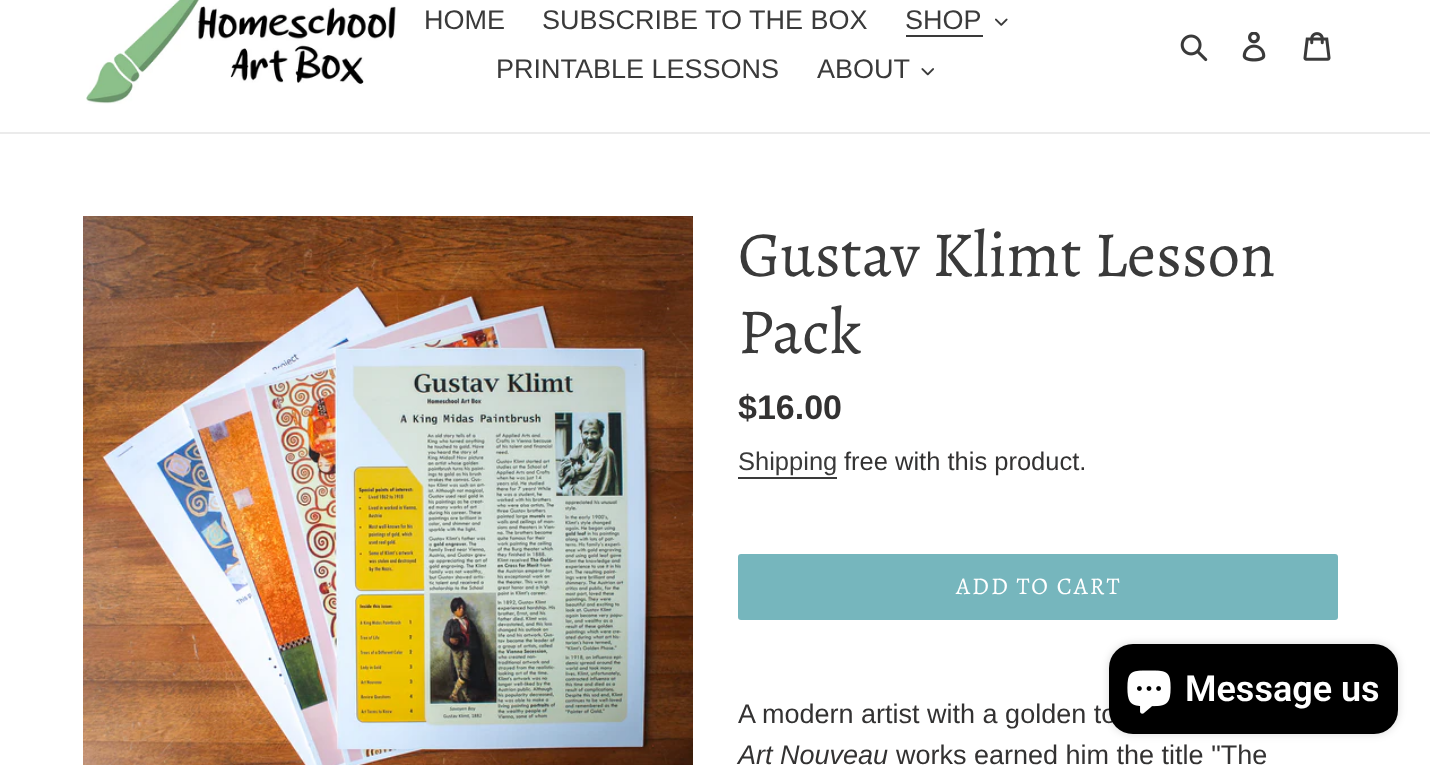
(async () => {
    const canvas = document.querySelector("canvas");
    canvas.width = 1430;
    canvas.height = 765;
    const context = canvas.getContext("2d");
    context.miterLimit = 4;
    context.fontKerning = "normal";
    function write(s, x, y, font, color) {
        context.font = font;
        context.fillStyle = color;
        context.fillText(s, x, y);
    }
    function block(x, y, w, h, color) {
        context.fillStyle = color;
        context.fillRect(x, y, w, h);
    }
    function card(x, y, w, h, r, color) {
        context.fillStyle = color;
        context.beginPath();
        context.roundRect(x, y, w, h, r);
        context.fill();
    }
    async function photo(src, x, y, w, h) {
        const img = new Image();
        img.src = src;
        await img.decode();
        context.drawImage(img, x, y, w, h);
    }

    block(0, 0, 1430, 765, "rgb(255, 255, 255)");
    block(0, 132, 1430, 2, "rgb(235, 235, 235)");
    await photo("media/1.png", 86, 0, 310, 104);
    write("HOME", 424, 29, "27px Liberation Sans", "rgb(58, 58, 58)");
    write("SUBSCRIBE TO THE BOX", 542, 29, "27px Liberation Sans", "rgb(58, 58, 58)");
    write("SHOP", 905, 29, "27px Liberation Sans", "rgb(58, 58, 58)");
    block(906, 35, 77, 2, "rgb(58, 58, 58)");
    await photo("media/2.png", 995, 18, 13, 8);
    write("PRINTABLE LESSONS", 496, 78, "27px Liberation Sans", "rgb(58, 58, 58)");
    write("ABOUT", 817, 78, "27px Liberation Sans", "rgb(58, 58, 58)");
    await photo("media/3.png", 921, 68, 13, 8);
    await photo("media/4.png", 1180, 34, 28, 28);
    await photo("media/5.png", 1242, 32, 24, 30);
    await photo("media/6.png", 1303, 32, 28, 29);
    await photo("media/7.png", 83, 216, 610, 549);
    write("Gustav Klimt Lesson", 738, 276, "64.5px Alegreya", "rgb(58, 58, 58)");
    write("Pack", 738, 353, "64.5px Alegreya", "rgb(58, 58, 58)");
    write("$16.00", 738, 419, "bold 34px Liberation Sans", "rgb(51, 50, 50)");
    write("Shipping", 738, 470, "25.5px Liberation Sans", "rgb(58, 58, 58)");
    block(738, 477, 99, 2, "rgb(58, 58, 58)");
    write("free with this product.", 844, 470, "25.5px Liberation Sans", "rgb(51, 50, 50)");
    card(738, 554, 600, 66, 3, "rgb(118, 182, 189)");
    context.letterSpacing = "2px";
    write("ADD TO CART", 956, 594, "24px Alegreya", "rgb(255, 255, 255)");
    context.letterSpacing = "0px";
    write("A modern artist with a golden to", 738, 723, "27px Liberation Sans", "rgb(51, 50, 50)");
    write("Art Nouveau", 738, 764, "italic 27px Liberation Sans", "rgb(51, 50, 50)");
    write("works earned him the title \"The", 896, 764, "27px Liberation Sans", "rgb(51, 50, 50)");
    context.fillStyle = "rgba(0, 0, 0, 0.15)";
    context.filter = "blur(4px)";
    context.beginPath();
    context.roundRect(1109, 644, 289, 90, 24);
    context.fill();
    context.filter = "none";
    card(1109, 644, 289, 90, 24, "rgb(0, 0, 0)");
    await photo("media/8.png", 1127, 670, 44, 44);
    write("Message us", 1185, 701, "600 36px Roboto", "rgb(255, 255, 255)");
})();
